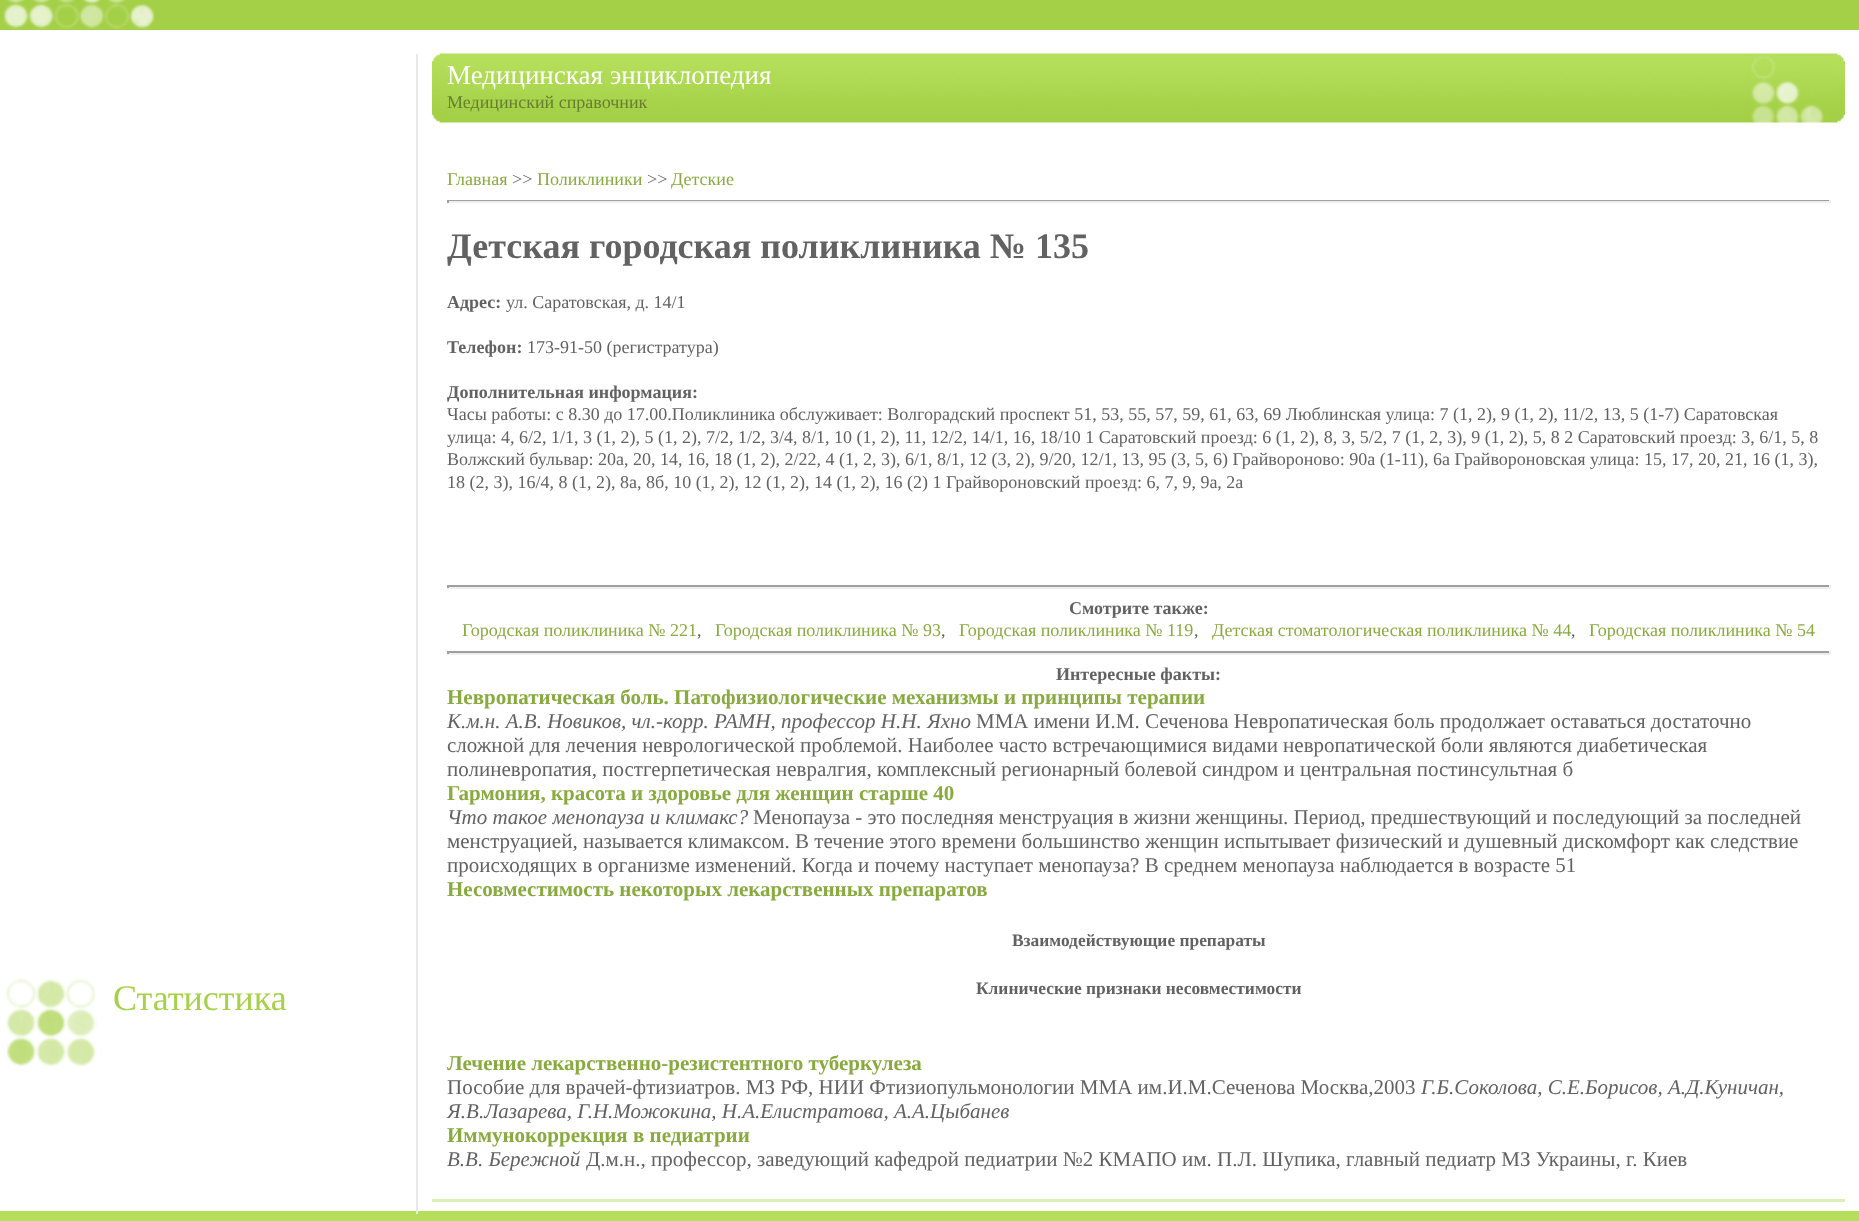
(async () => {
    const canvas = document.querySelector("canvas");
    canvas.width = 1859;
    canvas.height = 1221;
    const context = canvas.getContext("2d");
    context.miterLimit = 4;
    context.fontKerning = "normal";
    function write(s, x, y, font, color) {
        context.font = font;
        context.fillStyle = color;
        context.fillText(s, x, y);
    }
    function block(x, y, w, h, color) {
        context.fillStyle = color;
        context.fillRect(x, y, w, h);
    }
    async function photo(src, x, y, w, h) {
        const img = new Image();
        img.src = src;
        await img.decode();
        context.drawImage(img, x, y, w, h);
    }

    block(0, 0, 1859, 1221, "rgb(255, 255, 255)");
    block(0, 0, 1859, 30, "rgb(164, 208, 71)");
    await photo("media/1.png", 3, 0, 152, 30);
    await photo("media/2.png", 6, 978, 92, 88);
    write("Статистика", 113, 1010, "36px Liberation Serif", "rgb(166, 209, 73)");
    block(0, 1211, 1859, 10, "rgb(181, 223, 91)");
    block(416, 54, 2, 1160, "rgb(232, 234, 234)");
    await photo("media/3.png", 432, 53, 15, 70);
    await photo("media/4.png", 447, 53, 1299, 70);
    write("Медицинская энциклопедия", 447, 84, "27px Liberation Serif", "rgb(255, 255, 255)");
    write("Медицинский справочник", 447, 108, "18px Liberation Serif", "rgb(101, 126, 49)");
    await photo("media/5.png", 1746, 53, 81, 70);
    await photo("media/6.png", 1827, 53, 18, 70);
    write("Главная", 447, 185, "18px Liberation Serif", "rgb(136, 170, 62)");
    write(">>", 512, 185, "18px Liberation Serif", "rgb(98, 98, 98)");
    write("Поликлиники", 537, 185, "18px Liberation Serif", "rgb(136, 170, 62)");
    write(">>", 647, 185, "18px Liberation Serif", "rgb(98, 98, 98)");
    write("Детские", 671, 185, "18px Liberation Serif", "rgb(136, 170, 62)");
    block(447, 200, 1383, 1, "rgb(159, 159, 159)");
    block(1829, 200, 2, 3, "rgb(238, 238, 238)");
    block(447, 201, 1383, 2, "rgb(238, 238, 238)");
    block(447, 200, 2, 3, "rgb(159, 159, 159)");
    write("Детская городская поликлиника № 135", 447, 258, "bold 36px Liberation Serif", "rgb(98, 98, 98)");
    write("Адрес:", 447, 308, "bold 18px Liberation Serif", "rgb(98, 98, 98)");
    write("ул. Саратовская, д. 14/1", 506, 308, "18px Liberation Serif", "rgb(98, 98, 98)");
    write("Телефон:", 447, 353, "bold 18px Liberation Serif", "rgb(98, 98, 98)");
    write("173-91-50 (регистратура)", 527, 353, "18px Liberation Serif", "rgb(98, 98, 98)");
    write("Дополнительная информация:", 447, 398, "bold 18px Liberation Serif", "rgb(98, 98, 98)");
    write("Часы работы: с 8.30 до 17.00.Поликлиника обслуживает: Волгорадский проспект 51, 53, 55, 57, 59, 61, 63, 69 Люблинская улица: 7 (1, 2), 9 (1, 2), 11/2, 13, 5 (1-7) Саратовская", 447, 420, "18px Liberation Serif", "rgb(98, 98, 98)");
    write("улица: 4, 6/2, 1/1, 3 (1, 2), 5 (1, 2), 7/2, 1/2, 3/4, 8/1, 10 (1, 2), 11, 12/2, 14/1, 16, 18/10 1 Саратовский проезд: 6 (1, 2), 8, 3, 5/2, 7 (1, 2, 3), 9 (1, 2), 5, 8 2 Саратовский проезд: 3, 6/1, 5, 8", 447, 443, "18px Liberation Serif", "rgb(98, 98, 98)");
    write("Волжский бульвар: 20а, 20, 14, 16, 18 (1, 2), 2/22, 4 (1, 2, 3), 6/1, 8/1, 12 (3, 2), 9/20, 12/1, 13, 95 (3, 5, 6) Грайвороново: 90а (1-11), 6а Грайвороновская улица: 15, 17, 20, 21, 16 (1, 3),", 447, 465, "18px Liberation Serif", "rgb(98, 98, 98)");
    write("18 (2, 3), 16/4, 8 (1, 2), 8а, 8б, 10 (1, 2), 12 (1, 2), 14 (1, 2), 16 (2) 1 Грайвороновский проезд: 6, 7, 9, 9а, 2а", 447, 488, "18px Liberation Serif", "rgb(98, 98, 98)");
    block(447, 585, 1383, 2, "rgb(159, 159, 159)");
    block(1829, 585, 2, 3, "rgb(238, 238, 238)");
    block(447, 587, 1383, 2, "rgb(238, 238, 238)");
    block(447, 585, 2, 3, "rgb(159, 159, 159)");
    write("Смотрите также:", 1069, 614, "bold 18px Liberation Serif", "rgb(98, 98, 98)");
    write("Городская поликлиника № 221", 462, 636, "18px Liberation Serif", "rgb(136, 170, 62)");
    write(",", 697, 636, "18px Liberation Serif", "rgb(98, 98, 98)");
    write("Городская поликлиника № 93", 715, 636, "18px Liberation Serif", "rgb(136, 170, 62)");
    write(",", 941, 636, "18px Liberation Serif", "rgb(98, 98, 98)");
    write("Городская поликлиника № 119", 959, 636, "18px Liberation Serif", "rgb(136, 170, 62)");
    write(",", 1194, 636, "18px Liberation Serif", "rgb(98, 98, 98)");
    write("Детская стоматологическая поликлиника № 44", 1212, 636, "18px Liberation Serif", "rgb(136, 170, 62)");
    write(",", 1571, 636, "18px Liberation Serif", "rgb(98, 98, 98)");
    write("Городская поликлиника № 54", 1589, 636, "18px Liberation Serif", "rgb(136, 170, 62)");
    block(447, 651, 1383, 2, "rgb(159, 159, 159)");
    block(1829, 651, 2, 3, "rgb(238, 238, 238)");
    block(447, 653, 1383, 2, "rgb(238, 238, 238)");
    block(447, 651, 2, 3, "rgb(159, 159, 159)");
    write("Интересные факты:", 1056, 680, "bold 18px Liberation Serif", "rgb(98, 98, 98)");
    write("Невропатическая боль. Патофизиологические механизмы и принципы терапии", 447, 704, "bold 21px Liberation Serif", "rgb(136, 170, 62)");
    write("К.м.н. А.В. Новиков, чл.-корр. РАМН, профессор Н.Н. Яхно", 447, 728, "italic 21px Liberation Serif", "rgb(98, 98, 98)");
    write("ММА имени И.М. Сеченова Невропатическая боль продолжает оставаться достаточно", 976, 728, "21px Liberation Serif", "rgb(98, 98, 98)");
    write("сложной для лечения неврологической проблемой. Наиболее часто встречающимися видами невропатической боли являются диабетическая", 447, 752, "21px Liberation Serif", "rgb(98, 98, 98)");
    write("полиневропатия, постгерпетическая невралгия, комплексный регионарный болевой синдром и центральная постинсультная б", 447, 776, "21px Liberation Serif", "rgb(98, 98, 98)");
    write("Гармония, красота и здоровье для женщин старше 40", 447, 800, "bold 21px Liberation Serif", "rgb(136, 170, 62)");
    write("Что такое менопауза и климакс?", 447, 824, "italic 21px Liberation Serif", "rgb(98, 98, 98)");
    write("Менопауза - это последняя менструация в жизни женщины. Период, предшествующий и последующий за последней", 753, 824, "21px Liberation Serif", "rgb(98, 98, 98)");
    write("менструацией, называется климаксом. В течение этого времени большинство женщин испытывает физический и душевный дискомфорт как следствие", 447, 848, "21px Liberation Serif", "rgb(98, 98, 98)");
    write("происходящих в организме изменений. Когда и почему наступает менопауза? В среднем менопауза наблюдается в возрасте 51", 447, 872, "21px Liberation Serif", "rgb(98, 98, 98)");
    write("Несовместимость некоторых лекарственных препаратов", 447, 896, "bold 21px Liberation Serif", "rgb(136, 170, 62)");
    write("Взаимодействующие препараты", 1012, 946, "bold 17.4px Liberation Serif", "rgb(98, 98, 98)");
    write("Клинические признаки несовместимости", 976, 994, "bold 17.4px Liberation Serif", "rgb(98, 98, 98)");
    write("Лечение лекарственно-резистентного туберкулеза", 447, 1070, "bold 21px Liberation Serif", "rgb(136, 170, 62)");
    write("Пособие для врачей-фтизиатров. МЗ РФ, НИИ Фтизиопульмонологии ММА им.И.М.Сеченова Москва,2003", 447, 1094, "21px Liberation Serif", "rgb(98, 98, 98)");
    write("Г.Б.Соколова, С.Е.Борисов, А.Д.Куничан,", 1421, 1094, "italic 21px Liberation Serif", "rgb(98, 98, 98)");
    write("Я.В.Лазарева, Г.Н.Можокина, Н.А.Елистратова, А.А.Цыбанев", 447, 1118, "italic 21px Liberation Serif", "rgb(98, 98, 98)");
    write("Иммунокоррекция в педиатрии", 447, 1142, "bold 21px Liberation Serif", "rgb(136, 170, 62)");
    write("В.В. Бережной", 447, 1166, "italic 21px Liberation Serif", "rgb(98, 98, 98)");
    write("Д.м.н., профессор, заведующий кафедрой педиатрии №2 КМАПО им. П.Л. Шупика, главный педиатр МЗ Украины, г. Киев", 586, 1166, "21px Liberation Serif", "rgb(98, 98, 98)");
    block(432, 1199, 1413, 3, "rgb(221, 239, 181)");
})();
